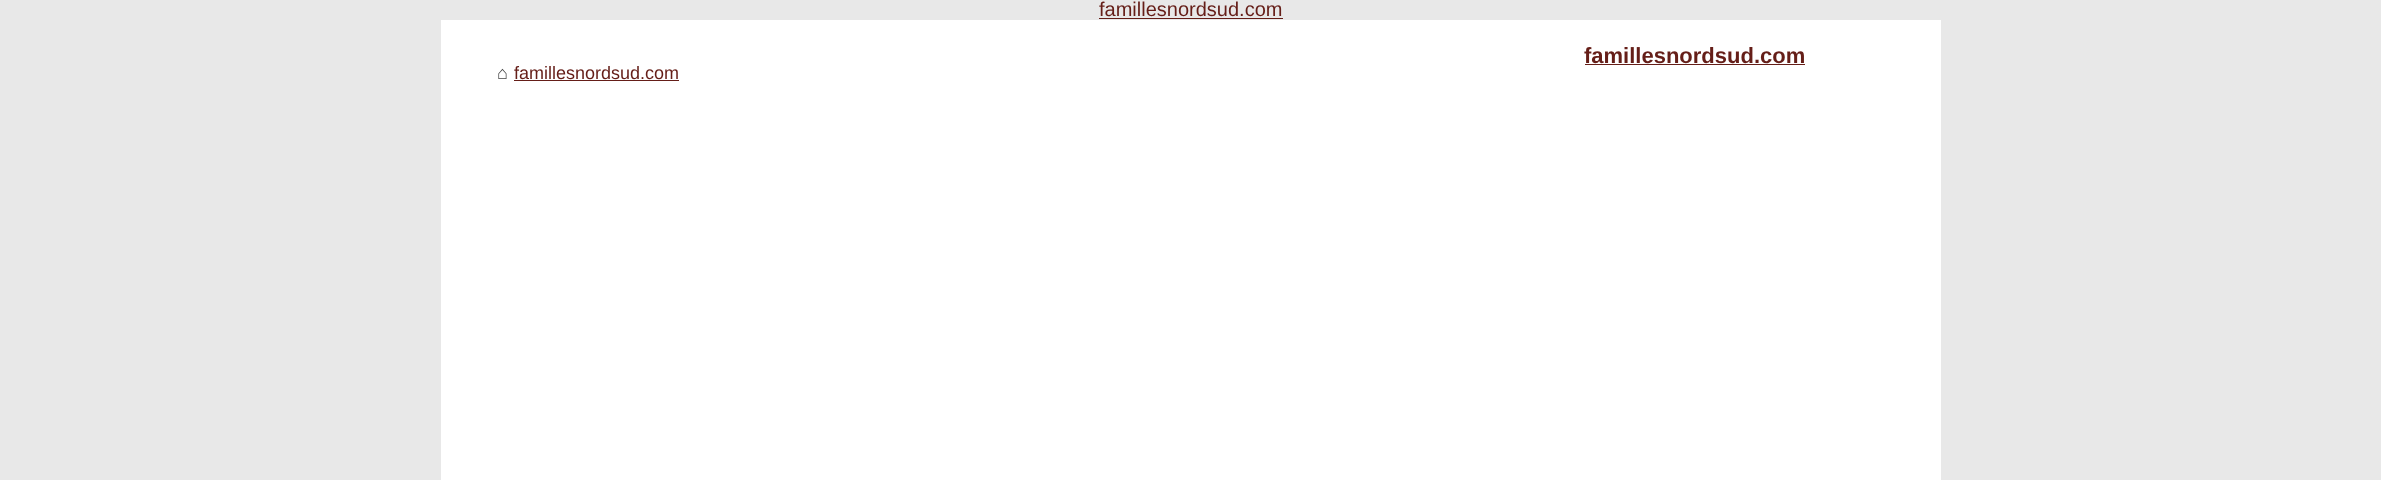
(async () => {
    const canvas = document.querySelector("canvas");
    canvas.width = 2381;
    canvas.height = 480;
    const context = canvas.getContext("2d");
    context.miterLimit = 4;
    context.fontKerning = "normal";
    function write(s, x, y, font, color) {
        context.font = font;
        context.fillStyle = color;
        context.fillText(s, x, y);
    }
    function block(x, y, w, h, color) {
        context.fillStyle = color;
        context.fillRect(x, y, w, h);
    }

    block(0, 0, 2381, 480, "rgb(232, 232, 232)");
    write("famillesnordsud.com", 1099, 16, "20px Liberation Sans", "rgb(101, 30, 24)");
    block(1099, 18, 184, 1, "rgb(101, 30, 24)");
    block(441, 20, 1500, 460, "rgb(255, 255, 255)");
    write("famillesnordsud.com", 1584, 63, "bold 22px Liberation Sans", "rgb(101, 30, 24)");
    block(1585, 64, 220, 1, "rgb(101, 30, 24)");
    write("⌂", 497, 79, "18px Liberation Sans", "rgb(69, 69, 69)");
    write("famillesnordsud.com", 514, 79, "18px Liberation Sans", "rgb(101, 30, 24)");
    block(514, 80, 165, 1, "rgb(101, 30, 24)");
})();
